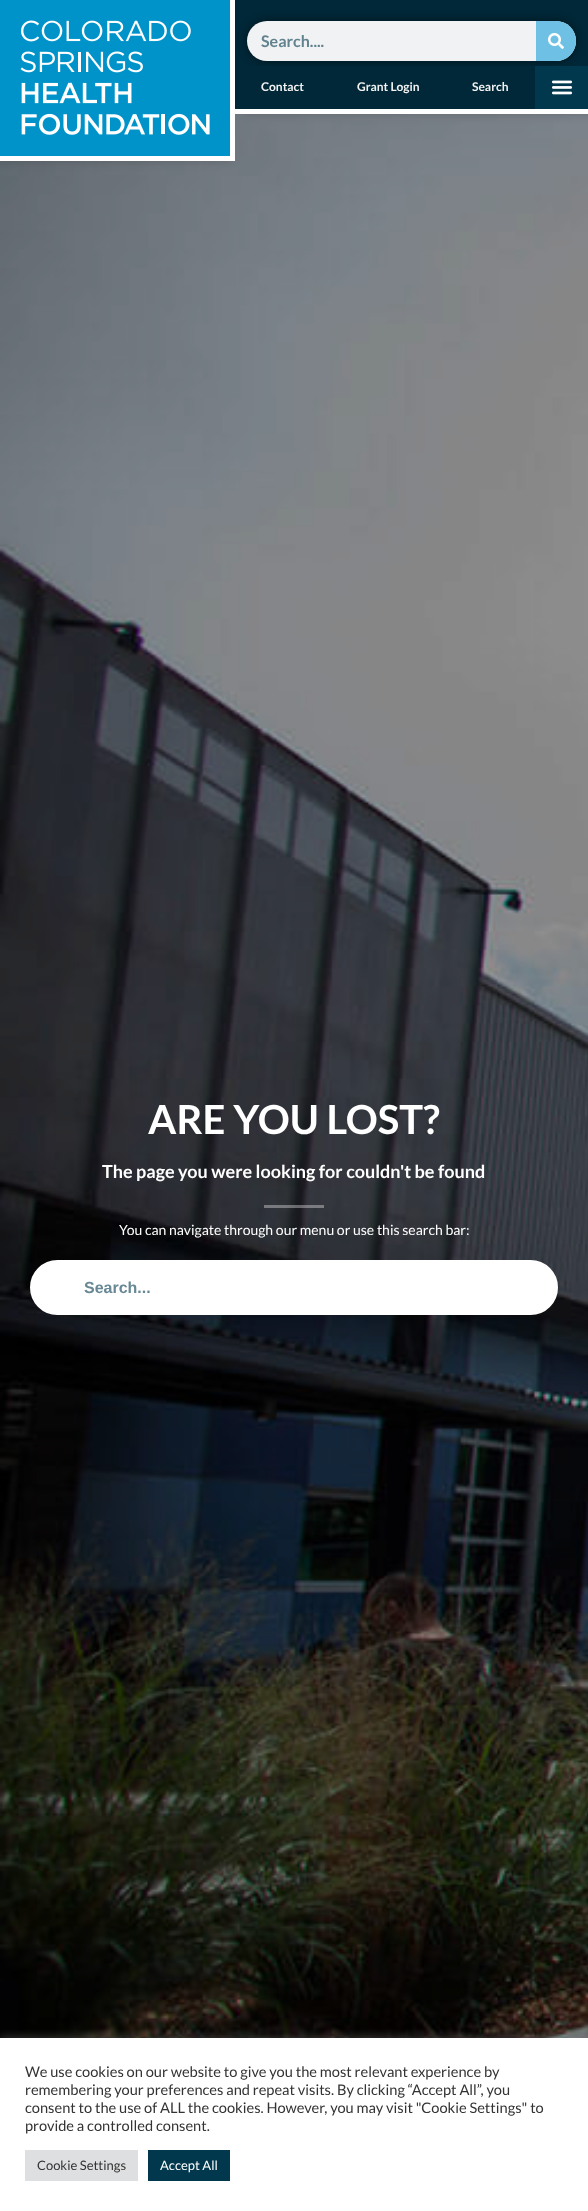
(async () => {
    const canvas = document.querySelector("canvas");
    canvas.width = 588;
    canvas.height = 2211;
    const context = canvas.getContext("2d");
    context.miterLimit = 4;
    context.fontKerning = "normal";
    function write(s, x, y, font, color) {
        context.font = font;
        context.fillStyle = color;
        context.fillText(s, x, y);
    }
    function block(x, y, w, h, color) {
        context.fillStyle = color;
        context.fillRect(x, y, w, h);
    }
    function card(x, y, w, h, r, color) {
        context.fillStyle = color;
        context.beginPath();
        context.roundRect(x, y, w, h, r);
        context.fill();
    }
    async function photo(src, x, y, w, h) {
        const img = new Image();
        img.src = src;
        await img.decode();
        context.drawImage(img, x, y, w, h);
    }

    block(0, 0, 588, 2211, "rgb(255, 255, 255)");
    await photo("media/4.png", 0, 114, 588, 1924);
    context.fillStyle = "rgba(0, 0, 0, 0.15)";
    context.filter = "blur(5px)";
    context.beginPath();
    context.rect(245, 0, 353, 114);
    context.fill();
    context.filter = "none";
    block(235, 109, 353, 5, "rgb(255, 255, 255)");
    block(235, 0, 353, 66, "rgb(0, 40, 56)");
    context.fillStyle = "rgba(0, 0, 0, 0.5)";
    context.filter = "blur(5px)";
    context.beginPath();
    context.roundRect(247, 21, 329, 40, 20);
    context.fill();
    context.filter = "none";
    block(235, 66, 300, 43, "rgb(0, 40, 56)");
    context.fillStyle = "rgba(0, 0, 0, 0.15)";
    context.filter = "blur(5px)";
    context.beginPath();
    context.rect(-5, 0, 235, 161);
    context.fill();
    context.filter = "none";
    block(0, 0, 235, 161, "rgb(255, 255, 255)");
    await photo("media/1.png", 0, 0, 230, 156);
    card(247, 21, 329, 40, 20, "rgb(241, 242, 243)");
    write("Search....", 261, 47, "bold 16px Lato", "rgb(97, 130, 143)");
    context.fillStyle = "rgb(110, 193, 228)";
    context.beginPath();
    context.roundRect(536, 21, 40, 40, [0, 20, 20, 0]);
    context.fill();
    await photo("media/2.png", 548, 33, 16, 16);
    write("Contact", 261, 91, "bold 12px Lato", "rgb(242, 242, 242)");
    write("Grant Login", 357, 91, "bold 12px Lato", "rgb(242, 242, 242)");
    write("Search", 472, 91, "bold 12px Lato", "rgb(242, 242, 242)");
    block(535, 66, 53, 43, "rgb(1, 56, 77)");
    await photo("media/3.png", 551, 80, 22, 15);
    write("ARE YOU LOST?", 148, 1134, "bold 40px Lato", "rgb(255, 255, 255)");
    write("The page you were looking for couldn't be found", 102, 1178, "bold 18px Lato", "rgb(255, 255, 255)");
    block(264, 1205, 60, 3, "rgba(255, 255, 255, 0.35)");
    write("You can navigate through our menu or use this search bar:", 119, 1235, "14px Lato", "rgb(255, 255, 255)");
    context.beginPath();
    context.roundRect(31, 1261, 526, 53, 26.5);
    context.fill();
    context.strokeStyle = "rgb(255, 255, 255)";
    context.lineWidth = 2;
    context.stroke();
    write("Search...", 84, 1293, "bold 16px Liberation Sans", "rgb(103, 136, 148)");
    context.fillStyle = "rgba(172, 171, 171, 0.3)";
    context.filter = "blur(5px)";
    context.beginPath();
    context.rect(0, 2037, 588, 173);
    context.fill();
    context.filter = "none";
    block(0, 2038, 588, 173, "rgb(255, 255, 255)");
    write("We use cookies on our website to give you the most relevant experience by", 25, 2077, "14.65px Lato", "rgb(51, 51, 51)");
    write("remembering your preferences and repeat visits. By clicking “Accept All”, you", 25, 2095, "14.65px Lato", "rgb(51, 51, 51)");
    write("consent to the use of ALL the cookies. However, you may visit \"Cookie Settings\" to", 25, 2113, "14.65px Lato", "rgb(51, 51, 51)");
    write("provide a controlled consent.", 25, 2131, "14.65px Lato", "rgb(51, 51, 51)");
    block(25, 2150, 113, 31, "rgb(222, 223, 224)");
    write("Cookie Settings", 37, 2170, "13px Lato", "rgb(51, 51, 51)");
    block(148, 2150, 82, 31, "rgb(1, 56, 77)");
    write("Accept All", 160, 2170, "13px Lato", "rgb(255, 255, 255)");
})();
